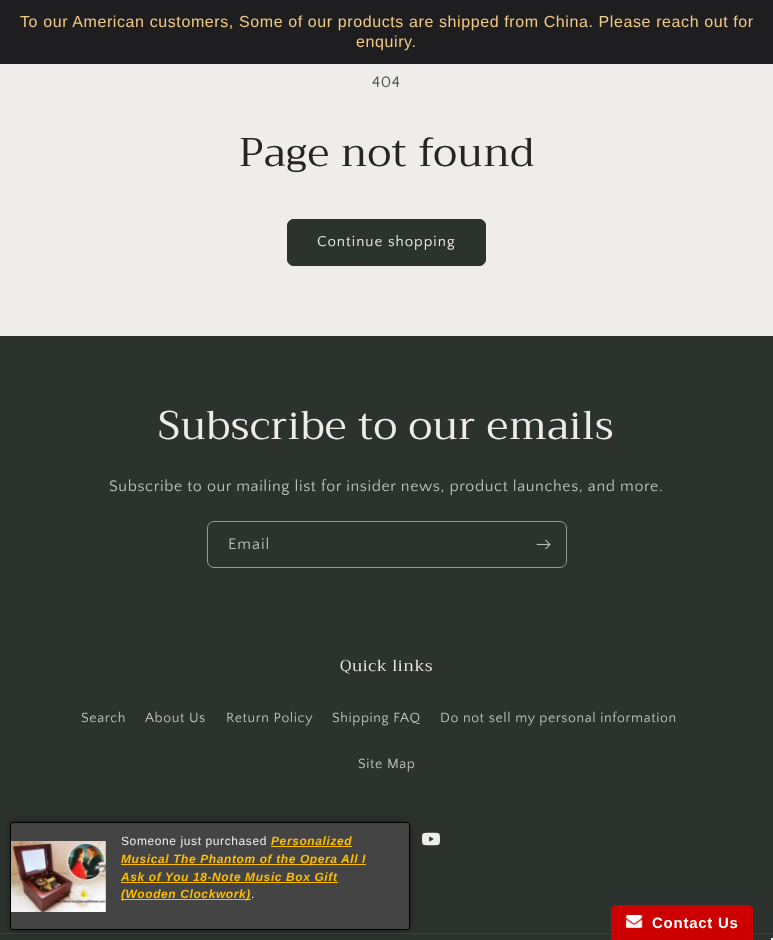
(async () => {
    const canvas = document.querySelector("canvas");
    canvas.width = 773;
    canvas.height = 940;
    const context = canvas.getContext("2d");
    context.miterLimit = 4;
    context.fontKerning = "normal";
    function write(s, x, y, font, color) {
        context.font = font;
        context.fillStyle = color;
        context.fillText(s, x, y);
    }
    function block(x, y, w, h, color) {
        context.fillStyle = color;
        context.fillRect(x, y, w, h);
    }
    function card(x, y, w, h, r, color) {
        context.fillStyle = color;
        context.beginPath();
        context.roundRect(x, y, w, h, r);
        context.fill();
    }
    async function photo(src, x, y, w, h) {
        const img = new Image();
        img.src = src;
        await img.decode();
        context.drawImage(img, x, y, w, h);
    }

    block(0, 0, 773, 940, "rgb(239, 236, 236)");
    block(0, 0, 773, 64, "rgb(30, 30, 32)");
    context.letterSpacing = "0.6px";
    write("To our American customers, Some of our products are shipped from China. Please reach out for", 20, 27, "16px Liberation Sans", "rgb(242, 202, 128)");
    write("enquiry.", 356, 47, "16px Liberation Sans", "rgb(242, 202, 128)");
    write("404", 372, 87, "16px Quattrocento Sans", "rgb(88, 87, 87)");
    write("Page not found", 239, 166, "40px Trirong", "rgb(37, 37, 37)");
    card(287, 219, 199, 47, 7, "rgb(44, 51, 47)");
    context.beginPath();
    context.roundRect(287.5, 219.5, 198, 46, 6.5);
    context.strokeStyle = "rgb(44, 51, 47)";
    context.stroke();
    context.letterSpacing = "1px";
    write("Continue shopping", 317, 246, "15px Quattrocento Sans", "rgb(239, 236, 236)");
    block(0, 336, 773, 604, "rgb(44, 51, 47)");
    context.letterSpacing = "0.6px";
    write("Subscribe to our emails", 158, 439, "40px Trirong", "rgb(239, 236, 236)");
    write("Subscribe to our mailing list for insider news, product launches, and more.", 109, 491, "16px Quattrocento Sans", "rgb(190, 190, 189)");
    context.beginPath();
    context.roundRect(207.5, 521.5, 359, 46, 6.5);
    context.strokeStyle = "rgb(151, 153, 151)";
    context.stroke();
    context.letterSpacing = "1px";
    write("Email", 228, 549, "16px Quattrocento Sans", "rgb(190, 190, 189)");
    await photo("media/1.png", 536, 539, 15, 11);
    context.letterSpacing = "0.6px";
    write("Quick links", 340, 671, "16px Trirong", "rgb(239, 236, 236)");
    write("Search", 81, 722, "14px Quattrocento Sans", "rgb(190, 190, 189)");
    write("About Us", 145, 722, "14px Quattrocento Sans", "rgb(190, 190, 189)");
    write("Return Policy", 226, 722, "14px Quattrocento Sans", "rgb(190, 190, 189)");
    write("Shipping FAQ", 332, 722, "14px Quattrocento Sans", "rgb(190, 190, 189)");
    write("Do not sell my personal information", 440, 722, "14px Quattrocento Sans", "rgb(190, 190, 189)");
    write("Site Map", 358, 768, "14px Quattrocento Sans", "rgb(190, 190, 189)");
    await photo("media/2.png", 422, 832, 18, 14);
    block(0, 933, 773, 1, "rgb(60, 66, 62)");
    context.fillStyle = "rgba(0, 0, 0, 0.4)";
    context.filter = "blur(5px)";
    context.beginPath();
    context.roundRect(10, 822, 400, 108, 3);
    context.fill();
    context.filter = "none";
    context.fillStyle = "rgb(68, 68, 68)";
    context.beginPath();
    context.roundRect(10.5, 822.5, 399, 107, 2.5);
    context.fill();
    context.strokeStyle = "rgb(0, 0, 0)";
    context.stroke();
    await photo("media/3.png", 11, 841, 95, 71);
    write("Someone just purchased", 121, 845, "12px Liberation Sans", "rgb(239, 236, 236)");
    write("Personalized", 271, 845, "italic bold 12px Liberation Sans", "rgb(255, 189, 0)");
    block(271, 846, 81, 1, "rgb(255, 189, 0)");
    block(121, 864, 245, 1, "rgb(255, 189, 0)");
    write("Musical The Phantom of the Opera All I", 121, 863, "italic bold 12px Liberation Sans", "rgb(255, 189, 0)");
    write("Ask of You 18-Note Music Box Gift", 121, 881, "italic bold 12px Liberation Sans", "rgb(255, 189, 0)");
    block(121, 882, 217, 1, "rgb(255, 189, 0)");
    block(121, 899, 130, 1, "rgb(255, 189, 0)");
    write("(Wooden Clockwork)", 121, 898, "italic bold 12px Liberation Sans", "rgb(255, 189, 0)");
    write(".", 251, 898, "12px Liberation Sans", "rgb(239, 236, 236)");
    context.fillStyle = "rgb(204, 0, 0)";
    context.beginPath();
    context.roundRect(611, 905, 142, 35, [5, 5, 0, 0]);
    context.fill();
    await photo("media/4.png", 625, 915, 18, 13);
    context.letterSpacing = "0.75px";
    write("Contact Us", 652, 928, "bold 15px Liberation Sans", "rgb(255, 255, 255)");
    block(771, 938, 2, 2, "rgb(245, 245, 245)");
})();
